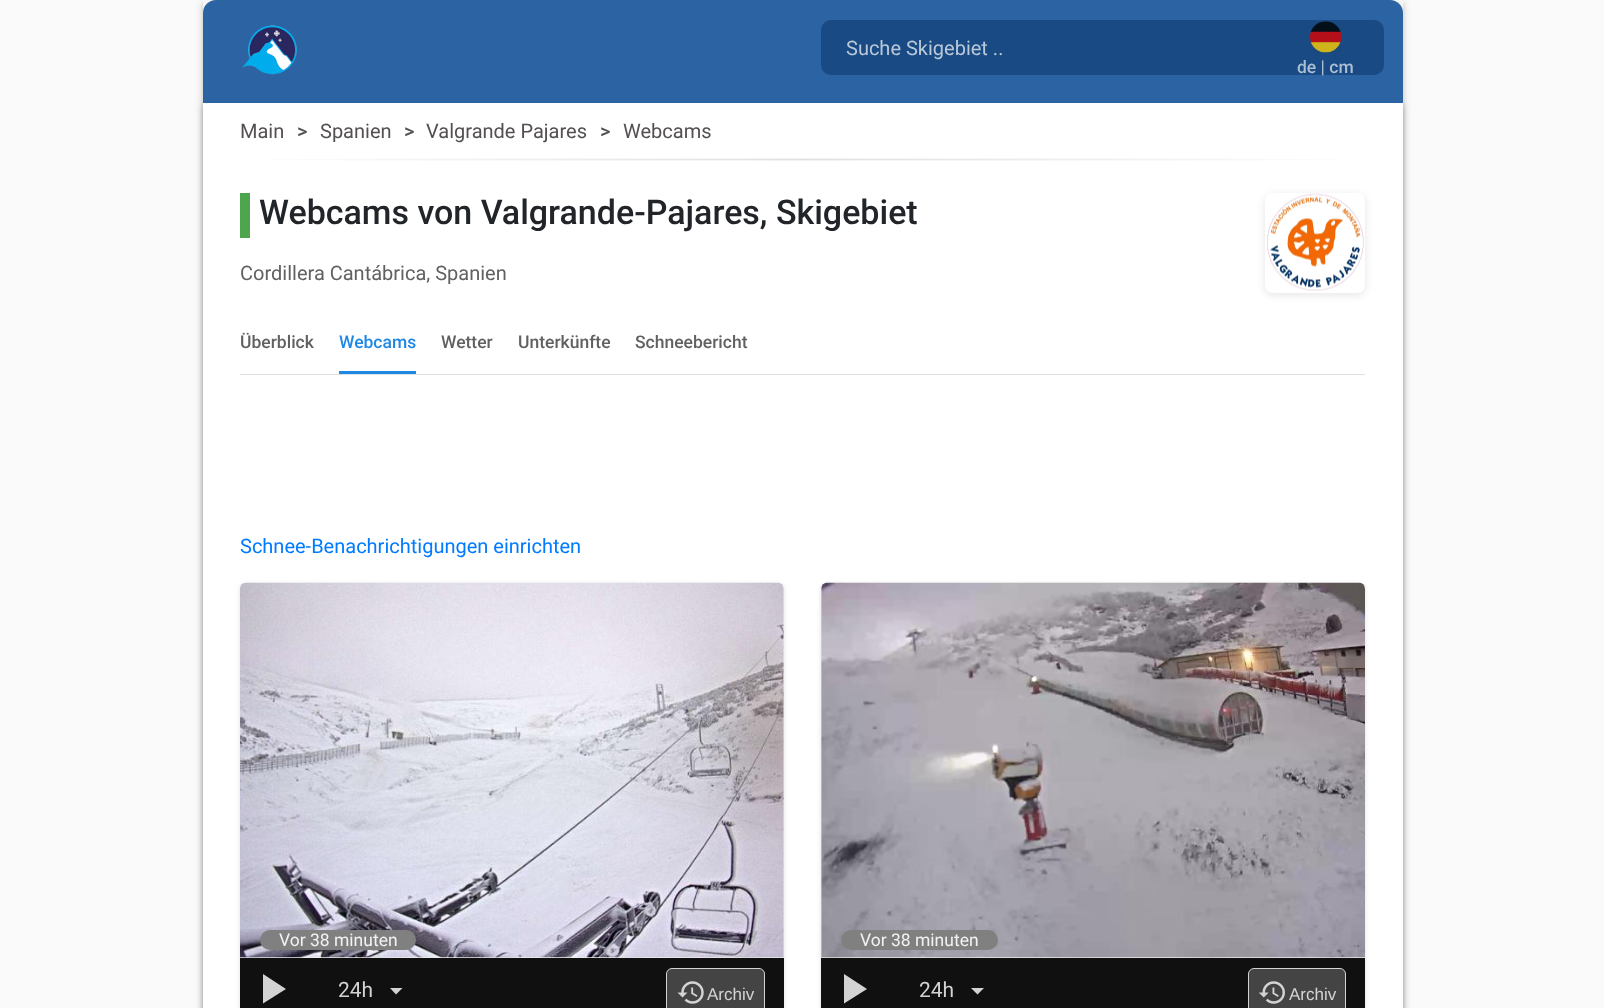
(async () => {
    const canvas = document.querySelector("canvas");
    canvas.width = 1604;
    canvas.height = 1008;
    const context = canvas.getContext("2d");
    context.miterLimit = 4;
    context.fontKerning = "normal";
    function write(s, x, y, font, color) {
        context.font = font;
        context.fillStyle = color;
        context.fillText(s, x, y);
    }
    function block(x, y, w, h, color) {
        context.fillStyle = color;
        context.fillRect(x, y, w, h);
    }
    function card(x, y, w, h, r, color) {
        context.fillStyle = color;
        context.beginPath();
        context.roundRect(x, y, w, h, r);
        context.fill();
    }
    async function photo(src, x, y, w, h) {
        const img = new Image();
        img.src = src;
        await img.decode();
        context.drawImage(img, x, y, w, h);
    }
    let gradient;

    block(0, 0, 1604, 1008, "rgb(250, 250, 250)");
    context.fillStyle = "rgba(0, 0, 0, 0.12)";
    context.filter = "blur(5px)";
    context.beginPath();
    context.rect(203, 1, 1200, 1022);
    context.fill();
    context.filter = "none";
    context.fillStyle = "rgba(0, 0, 0, 0.14)";
    context.filter = "blur(2.5px)";
    context.beginPath();
    context.rect(203, 4, 1200, 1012);
    context.fill();
    context.filter = "none";
    block(203, 0, 1200, 13, "rgb(245, 245, 245)");
    context.fillStyle = "rgba(0, 0, 0, 0.12)";
    context.filter = "blur(5px)";
    context.beginPath();
    context.rect(203, 104, 1200, 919);
    context.fill();
    context.filter = "none";
    context.fillStyle = "rgba(0, 0, 0, 0.14)";
    context.filter = "blur(2.5px)";
    context.beginPath();
    context.rect(203, 106, 1200, 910);
    context.fill();
    context.filter = "none";
    context.fillStyle = "rgb(44, 99, 162)";
    context.beginPath();
    context.roundRect(203, 0, 1200, 103, [13, 13, 0, 0]);
    context.fill();
    await photo("media/1.png", 242, 25, 55, 50);
    card(821, 20, 563, 55, 10, "rgb(25, 74, 131)");
    write("Suche Skigebiet ..", 846, 55, "20px Roboto", "rgb(186, 201, 218)");
    await photo("media/2.png", 1310, 21, 32, 32);
    write("de | cm", 1297, 73, "500 17.5px Roboto", "rgb(172, 190, 210)");
    block(203, 103, 1200, 905, "rgb(255, 255, 255)");
    write("Main", 240, 138, "20px Roboto", "rgb(85, 80, 80)");
    write(">", 297, 138, "500 20px Roboto", "rgb(85, 80, 80)");
    write("Spanien", 320, 138, "20px Roboto", "rgb(85, 80, 80)");
    write(">", 404, 138, "500 20px Roboto", "rgb(85, 80, 80)");
    write("Valgrande Pajares", 426, 138, "20px Roboto", "rgb(85, 80, 80)");
    write(">", 600, 138, "500 20px Roboto", "rgb(85, 80, 80)");
    write("Webcams", 623, 138, "20px Roboto", "rgb(85, 80, 80)");
    gradient = context.createLinearGradient(221, 159, 1384, 159);
    gradient.addColorStop(0, "rgb(255, 255, 255)");
    gradient.addColorStop(0.5, "rgb(224, 224, 224)");
    gradient.addColorStop(1, "rgb(255, 255, 255)");
    context.fillStyle = gradient;
    context.fillRect(268, 159, 1069, 1);
    gradient = context.createLinearGradient(221, 158, 1384, 158);
    gradient.addColorStop(0, "rgb(255, 255, 255)");
    gradient.addColorStop(0.5, "rgb(243, 243, 243)");
    gradient.addColorStop(1, "rgb(255, 255, 255)");
    context.fillStyle = gradient;
    context.fillRect(342, 158, 921, 1);
    gradient = context.createLinearGradient(221, 161, 1384, 161);
    gradient.addColorStop(0, "rgb(255, 255, 255)");
    gradient.addColorStop(0.5, "rgb(243, 243, 243)");
    gradient.addColorStop(1, "rgb(255, 255, 255)");
    context.fillStyle = gradient;
    context.fillRect(342, 160, 921, 1);
    block(240, 193, 10, 45, "rgb(77, 166, 77)");
    write("Webcams von Valgrande-Pajares, Skigebiet", 259, 224, "500 34px Roboto", "rgb(33, 37, 41)");
    context.fillStyle = "rgba(0, 0, 0, 0.1)";
    context.filter = "blur(4px)";
    context.beginPath();
    context.roundRect(1265, 195, 100, 100, 8);
    context.fill();
    context.filter = "none";
    card(1265, 193, 100, 100, 8, "rgb(255, 255, 255)");
    await photo("media/3.png", 1267, 193, 97, 98);
    write("Cordillera Cantábrica, Spanien", 240, 280, "20px Roboto", "rgb(97, 97, 97)");
    block(240, 374, 1125, 1, "rgb(224, 224, 224)");
    write("Überblick", 240, 348, "500 17.5px Roboto", "rgb(97, 97, 97)");
    write("Webcams", 339, 348, "500 17.5px Roboto", "rgb(30, 136, 229)");
    block(339, 371, 77, 3, "rgb(30, 136, 229)");
    write("Wetter", 441, 348, "500 17.5px Roboto", "rgb(97, 97, 97)");
    write("Unterkünfte", 518, 348, "500 17.5px Roboto", "rgb(97, 97, 97)");
    write("Schneebericht", 635, 348, "500 17.5px Roboto", "rgb(97, 97, 97)");
    write("Schnee-Benachrichtigungen einrichten", 240, 553, "20px Roboto", "rgb(0, 123, 255)");
    context.fillStyle = "rgba(0, 0, 0, 0.12)";
    context.filter = "blur(2px)";
    context.beginPath();
    context.roundRect(240, 584, 544, 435, 5);
    context.fill();
    context.filter = "none";
    context.fillStyle = "rgba(0, 0, 0, 0.14)";
    context.filter = "blur(0.5px)";
    context.beginPath();
    context.roundRect(240, 584, 544, 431, 5);
    context.fill();
    context.filter = "none";
    card(240, 583, 544, 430, 5, "rgb(255, 255, 255)");
    gradient = context.createLinearGradient(200, 648, 325, 648);
    gradient.addColorStop(0.2, "rgb(238, 238, 238)");
    gradient.addColorStop(0.4, "rgb(221, 221, 221)");
    gradient.addColorStop(0.6, "rgb(238, 238, 238)");
    context.fillStyle = gradient;
    context.beginPath();
    context.roundRect(240, 583, 85, 375, [6, 0, 0, 0]);
    context.fill();
    gradient = context.createLinearGradient(700, 648, 825, 648);
    gradient.addColorStop(0.2, "rgb(238, 238, 238)");
    gradient.addColorStop(0.4, "rgb(221, 221, 221)");
    gradient.addColorStop(0.6, "rgb(238, 238, 238)");
    context.fillStyle = gradient;
    context.beginPath();
    context.roundRect(700, 583, 84, 375, [0, 6, 0, 0]);
    context.fill();
    gradient = context.createLinearGradient(325, 648, 450, 648);
    gradient.addColorStop(0.2, "rgb(238, 238, 238)");
    gradient.addColorStop(0.4, "rgb(221, 221, 221)");
    gradient.addColorStop(0.6, "rgb(238, 238, 238)");
    context.fillStyle = gradient;
    context.fillRect(325, 957, 125, 1);
    gradient = context.createLinearGradient(450, 648, 575, 648);
    gradient.addColorStop(0.2, "rgb(238, 238, 238)");
    gradient.addColorStop(0.4, "rgb(221, 221, 221)");
    gradient.addColorStop(0.6, "rgb(238, 238, 238)");
    context.fillStyle = gradient;
    context.fillRect(450, 957, 125, 1);
    gradient = context.createLinearGradient(575, 648, 700, 648);
    gradient.addColorStop(0.2, "rgb(238, 238, 238)");
    gradient.addColorStop(0.4, "rgb(221, 221, 221)");
    gradient.addColorStop(0.6, "rgb(238, 238, 238)");
    context.fillStyle = gradient;
    context.fillRect(575, 957, 125, 1);
    await photo("media/4.png", 240, 582, 544, 376);
    card(260, 930, 156, 20, 10, "rgb(128, 128, 128)");
    write("Vor 38 minuten", 279, 946, "17.5px Roboto", "rgb(242, 242, 242)");
    block(240, 958, 544, 50, "rgb(16, 16, 16)");
    context.fillStyle = "rgb(211, 211, 211)";
    context.beginPath();
    context.moveTo(263, 974);
    context.lineTo(286, 989);
    context.lineTo(263, 1003.5);
    context.closePath();
    context.fill();
    write("24h", 338, 997, "21px Roboto", "rgb(211, 211, 211)");
    context.beginPath();
    context.moveTo(390, 988);
    context.lineTo(402.5, 988);
    context.lineTo(396, 994.5);
    context.closePath();
    context.fill();
    context.fillStyle = "rgb(68, 68, 68)";
    context.beginPath();
    context.roundRect(666.5, 968.5, 98, 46, 5.5);
    context.fill();
    context.strokeStyle = "rgb(211, 211, 211)";
    context.stroke();
    await photo("media/5.png", 677, 981, 27, 23);
    write("Archiv", 707, 1000, "17px Liberation Sans", "rgb(211, 211, 211)");
    context.fillStyle = "rgba(0, 0, 0, 0.12)";
    context.filter = "blur(2px)";
    context.beginPath();
    context.roundRect(821, 584, 544, 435, 5);
    context.fill();
    context.filter = "none";
    context.fillStyle = "rgba(0, 0, 0, 0.14)";
    context.filter = "blur(0.5px)";
    context.beginPath();
    context.roundRect(821, 584, 544, 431, 5);
    context.fill();
    context.filter = "none";
    card(821, 583, 544, 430, 5, "rgb(255, 255, 255)");
    gradient = context.createLinearGradient(781, 648, 906, 648);
    gradient.addColorStop(0.2, "rgb(238, 238, 238)");
    gradient.addColorStop(0.4, "rgb(221, 221, 221)");
    gradient.addColorStop(0.6, "rgb(238, 238, 238)");
    context.fillStyle = gradient;
    context.beginPath();
    context.roundRect(821, 583, 85, 375, [6, 0, 0, 0]);
    context.fill();
    gradient = context.createLinearGradient(1281, 648, 1406, 648);
    gradient.addColorStop(0.2, "rgb(238, 238, 238)");
    gradient.addColorStop(0.4, "rgb(221, 221, 221)");
    gradient.addColorStop(0.6, "rgb(238, 238, 238)");
    context.fillStyle = gradient;
    context.beginPath();
    context.roundRect(1281, 583, 84, 375, [0, 6, 0, 0]);
    context.fill();
    gradient = context.createLinearGradient(906, 648, 1031, 648);
    gradient.addColorStop(0.2, "rgb(238, 238, 238)");
    gradient.addColorStop(0.4, "rgb(221, 221, 221)");
    gradient.addColorStop(0.6, "rgb(238, 238, 238)");
    context.fillStyle = gradient;
    context.fillRect(906, 957, 125, 1);
    gradient = context.createLinearGradient(1031, 648, 1156, 648);
    gradient.addColorStop(0.2, "rgb(238, 238, 238)");
    gradient.addColorStop(0.4, "rgb(221, 221, 221)");
    gradient.addColorStop(0.6, "rgb(238, 238, 238)");
    context.fillStyle = gradient;
    context.fillRect(1031, 957, 125, 1);
    gradient = context.createLinearGradient(1156, 648, 1281, 648);
    gradient.addColorStop(0.2, "rgb(238, 238, 238)");
    gradient.addColorStop(0.4, "rgb(221, 221, 221)");
    gradient.addColorStop(0.6, "rgb(238, 238, 238)");
    context.fillStyle = gradient;
    context.fillRect(1156, 957, 125, 1);
    await photo("media/6.png", 821, 582, 544, 376);
    card(841, 930, 157, 20, 10, "rgb(128, 128, 128)");
    write("Vor 38 minuten", 860, 946, "17.5px Roboto", "rgb(242, 242, 242)");
    block(821, 958, 544, 50, "rgb(16, 16, 16)");
    context.fillStyle = "rgb(211, 211, 211)";
    context.beginPath();
    context.moveTo(844, 974);
    context.lineTo(867, 989);
    context.lineTo(844, 1003.5);
    context.closePath();
    context.fill();
    write("24h", 919, 997, "21px Roboto", "rgb(211, 211, 211)");
    context.beginPath();
    context.moveTo(971, 988);
    context.lineTo(984, 988);
    context.lineTo(977.5, 994.5);
    context.closePath();
    context.fill();
    context.fillStyle = "rgb(68, 68, 68)";
    context.beginPath();
    context.roundRect(1248.5, 968.5, 97, 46, 5.5);
    context.fill();
    context.stroke();
    await photo("media/7.png", 1259, 981, 26, 23);
    write("Archiv", 1289, 1000, "17px Liberation Sans", "rgb(211, 211, 211)");
})();
